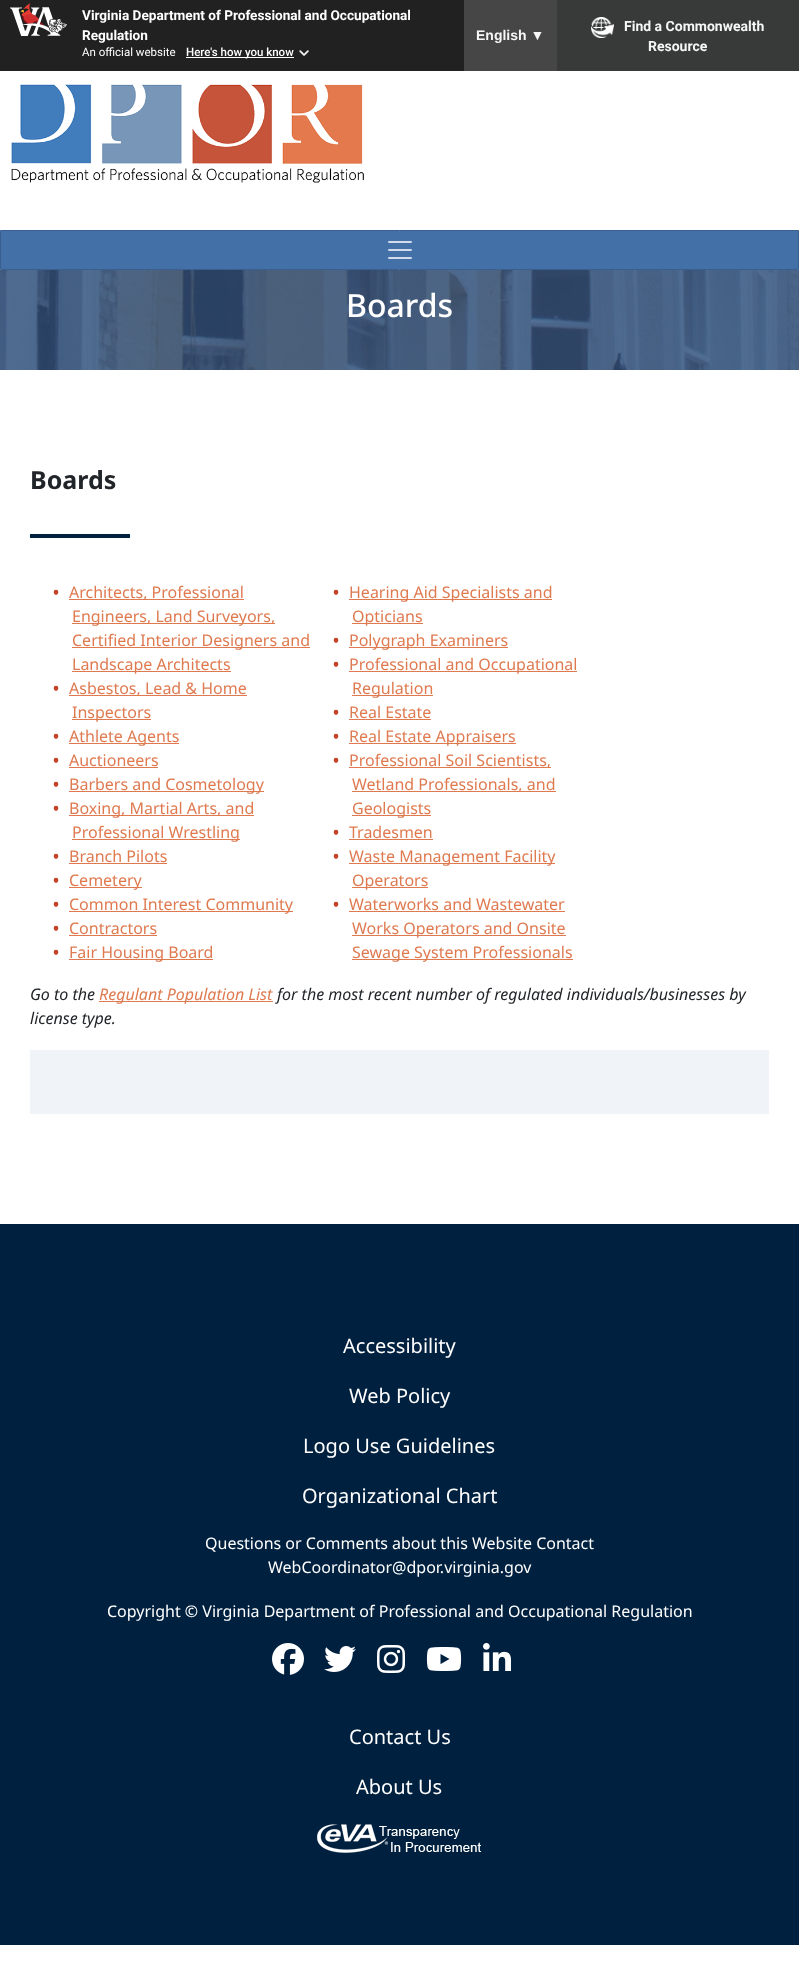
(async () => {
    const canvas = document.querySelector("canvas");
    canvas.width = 799;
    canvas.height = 1965;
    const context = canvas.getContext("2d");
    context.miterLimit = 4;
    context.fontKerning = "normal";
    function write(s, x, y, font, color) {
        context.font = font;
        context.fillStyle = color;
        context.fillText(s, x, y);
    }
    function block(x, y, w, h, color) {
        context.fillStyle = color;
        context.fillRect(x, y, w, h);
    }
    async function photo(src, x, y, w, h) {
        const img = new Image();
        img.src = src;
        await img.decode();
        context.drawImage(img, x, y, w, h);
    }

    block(0, 0, 799, 1965, "rgb(255, 255, 255)");
    block(0, 0, 464, 71, "rgb(33, 33, 33)");
    await photo("media/1.png", 10, 3, 57, 33);
    write("Virginia Department of Professional and Occupational", 82, 20, "bold 13.6px Roboto", "rgb(255, 255, 255)");
    write("Regulation", 82, 40, "bold 13.6px Roboto", "rgb(255, 255, 255)");
    write("An official website", 82, 56, "11.5px Roboto", "rgb(255, 255, 255)");
    block(186, 57, 108, 1, "rgb(255, 255, 255)");
    write("Here's how you know", 186, 56, "500 11.5px Roboto", "rgb(255, 255, 255)");
    await photo("media/2.png", 299, 50, 10, 6);
    block(464, 0, 93, 71, "rgb(70, 70, 70)");
    write("English ▼", 476, 40, "bold 14px Liberation Sans", "rgb(246, 246, 246)");
    block(557, 0, 242, 71, "rgb(56, 57, 57)");
    await photo("media/3.png", 591, 17, 23, 21);
    write("Find a Commonwealth", 624, 31, "bold 14px Roboto", "rgb(246, 246, 246)");
    write("Resource", 648, 51, "bold 14px Roboto", "rgb(246, 246, 246)");
    await photo("media/4.png", 11, 84, 353, 99);
    context.fillStyle = "rgb(67, 112, 167)";
    context.beginPath();
    context.rect(0.5, 230.5, 798, 39);
    context.fill();
    context.strokeStyle = "rgb(57, 95, 142)";
    context.stroke();
    await photo("media/5.png", 388, 241, 24, 18);
    await photo("media/6.png", 0, 270, 799, 100);
    write("Boards", 346, 317, "500 32px Noto Sans", "rgb(255, 255, 255)");
    write("Boards", 30, 489, "bold 25px Noto Sans", "rgb(33, 37, 41)");
    block(30, 534, 100, 4, "rgb(0, 32, 63)");
    write("•", 53, 598, "bold 16px Noto Sans", "rgb(197, 66, 36)");
    block(69, 599, 175, 1, "rgb(223, 122, 80)");
    write("Architects, Professional", 69, 598, "16px Noto Sans", "rgb(223, 122, 80)");
    block(72, 623, 203, 1, "rgb(223, 122, 80)");
    write("Engineers, Land Surveyors,", 72, 622, "16px Noto Sans", "rgb(223, 122, 80)");
    block(72, 647, 238, 1, "rgb(223, 122, 80)");
    write("Certified Interior Designers and", 72, 646, "16px Noto Sans", "rgb(223, 122, 80)");
    block(72, 671, 159, 1, "rgb(223, 122, 80)");
    write("Landscape Architects", 72, 670, "16px Noto Sans", "rgb(223, 122, 80)");
    write("•", 53, 694, "bold 16px Noto Sans", "rgb(197, 66, 36)");
    block(69, 695, 178, 1, "rgb(223, 122, 80)");
    write("Asbestos, Lead & Home", 69, 694, "16px Noto Sans", "rgb(223, 122, 80)");
    block(72, 719, 79, 1, "rgb(223, 122, 80)");
    write("Inspectors", 72, 718, "16px Noto Sans", "rgb(223, 122, 80)");
    write("•", 53, 742, "bold 16px Noto Sans", "rgb(197, 66, 36)");
    block(69, 743, 110, 1, "rgb(223, 122, 80)");
    write("Athlete Agents", 69, 742, "16px Noto Sans", "rgb(223, 122, 80)");
    write("•", 53, 766, "bold 16px Noto Sans", "rgb(197, 66, 36)");
    write("Auctioneers", 69, 766, "16px Noto Sans", "rgb(223, 122, 80)");
    block(69, 767, 89, 1, "rgb(223, 122, 80)");
    write("•", 53, 790, "bold 16px Noto Sans", "rgb(197, 66, 36)");
    block(69, 791, 195, 1, "rgb(223, 122, 80)");
    write("Barbers and Cosmetology", 69, 790, "16px Noto Sans", "rgb(223, 122, 80)");
    write("•", 53, 814, "bold 16px Noto Sans", "rgb(197, 66, 36)");
    block(69, 815, 185, 1, "rgb(223, 122, 80)");
    write("Boxing, Martial Arts, and", 69, 814, "16px Noto Sans", "rgb(223, 122, 80)");
    block(72, 839, 168, 1, "rgb(223, 122, 80)");
    write("Professional Wrestling", 72, 838, "16px Noto Sans", "rgb(223, 122, 80)");
    write("•", 53, 862, "bold 16px Noto Sans", "rgb(197, 66, 36)");
    write("Branch Pilots", 69, 862, "16px Noto Sans", "rgb(223, 122, 80)");
    block(69, 863, 98, 1, "rgb(223, 122, 80)");
    write("•", 53, 886, "bold 16px Noto Sans", "rgb(197, 66, 36)");
    block(69, 887, 73, 1, "rgb(223, 122, 80)");
    write("Cemetery", 69, 886, "16px Noto Sans", "rgb(223, 122, 80)");
    write("•", 53, 910, "bold 16px Noto Sans", "rgb(197, 66, 36)");
    block(69, 911, 224, 1, "rgb(223, 122, 80)");
    write("Common Interest Community", 69, 910, "16px Noto Sans", "rgb(223, 122, 80)");
    write("•", 53, 934, "bold 16px Noto Sans", "rgb(197, 66, 36)");
    write("Contractors", 69, 934, "16px Noto Sans", "rgb(223, 122, 80)");
    block(69, 935, 88, 1, "rgb(223, 122, 80)");
    write("•", 53, 958, "bold 16px Noto Sans", "rgb(197, 66, 36)");
    block(69, 959, 144, 1, "rgb(223, 122, 80)");
    write("Fair Housing Board", 69, 958, "16px Noto Sans", "rgb(223, 122, 80)");
    write("•", 333, 598, "bold 16px Noto Sans", "rgb(197, 66, 36)");
    block(349, 599, 203, 1, "rgb(223, 122, 80)");
    write("Hearing Aid Specialists and", 349, 598, "16px Noto Sans", "rgb(223, 122, 80)");
    block(352, 623, 71, 1, "rgb(223, 122, 80)");
    write("Opticians", 352, 622, "16px Noto Sans", "rgb(223, 122, 80)");
    write("•", 333, 646, "bold 16px Noto Sans", "rgb(197, 66, 36)");
    block(349, 647, 159, 1, "rgb(223, 122, 80)");
    write("Polygraph Examiners", 349, 646, "16px Noto Sans", "rgb(223, 122, 80)");
    write("•", 333, 670, "bold 16px Noto Sans", "rgb(197, 66, 36)");
    block(349, 671, 228, 1, "rgb(223, 122, 80)");
    write("Professional and Occupational", 349, 670, "16px Noto Sans", "rgb(223, 122, 80)");
    block(352, 695, 81, 1, "rgb(223, 122, 80)");
    write("Regulation", 352, 694, "16px Noto Sans", "rgb(223, 122, 80)");
    write("•", 333, 718, "bold 16px Noto Sans", "rgb(197, 66, 36)");
    write("Real Estate", 349, 718, "16px Noto Sans", "rgb(223, 122, 80)");
    block(349, 719, 82, 1, "rgb(223, 122, 80)");
    write("•", 333, 742, "bold 16px Noto Sans", "rgb(197, 66, 36)");
    block(349, 743, 167, 1, "rgb(223, 122, 80)");
    write("Real Estate Appraisers", 349, 742, "16px Noto Sans", "rgb(223, 122, 80)");
    write("•", 333, 766, "bold 16px Noto Sans", "rgb(197, 66, 36)");
    block(349, 767, 202, 1, "rgb(223, 122, 80)");
    write("Professional Soil Scientists,", 349, 766, "16px Noto Sans", "rgb(223, 122, 80)");
    block(352, 791, 204, 1, "rgb(223, 122, 80)");
    write("Wetland Professionals, and", 352, 790, "16px Noto Sans", "rgb(223, 122, 80)");
    block(352, 815, 79, 1, "rgb(223, 122, 80)");
    write("Geologists", 352, 814, "16px Noto Sans", "rgb(223, 122, 80)");
    write("•", 333, 838, "bold 16px Noto Sans", "rgb(197, 66, 36)");
    write("Tradesmen", 349, 838, "16px Noto Sans", "rgb(223, 122, 80)");
    block(349, 839, 84, 1, "rgb(223, 122, 80)");
    write("•", 333, 862, "bold 16px Noto Sans", "rgb(197, 66, 36)");
    block(349, 863, 206, 1, "rgb(223, 122, 80)");
    write("Waste Management Facility", 349, 862, "16px Noto Sans", "rgb(223, 122, 80)");
    block(352, 887, 76, 1, "rgb(223, 122, 80)");
    write("Operators", 352, 886, "16px Noto Sans", "rgb(223, 122, 80)");
    write("•", 333, 910, "bold 16px Noto Sans", "rgb(197, 66, 36)");
    write("Waterworks and Wastewater", 349, 910, "16px Noto Sans", "rgb(223, 122, 80)");
    block(349, 911, 216, 1, "rgb(223, 122, 80)");
    block(352, 935, 214, 1, "rgb(223, 122, 80)");
    write("Works Operators and Onsite", 352, 934, "16px Noto Sans", "rgb(223, 122, 80)");
    block(352, 959, 221, 1, "rgb(223, 122, 80)");
    write("Sewage System Professionals", 352, 958, "16px Noto Sans", "rgb(223, 122, 80)");
    write("Go to the", 30, 1000, "italic 16px Noto Sans", "rgb(33, 37, 41)");
    block(99, 1001, 174, 1, "rgb(223, 122, 80)");
    write("Regulant Population List", 99, 1000, "italic 16px Noto Sans", "rgb(223, 122, 80)");
    write("for the most recent number of regulated individuals/businesses by", 277, 1000, "italic 16px Noto Sans", "rgb(33, 37, 41)");
    write("license type.", 30, 1024, "italic 16px Noto Sans", "rgb(33, 37, 41)");
    block(30, 1050, 739, 64, "rgb(240, 243, 248)");
    block(0, 1224, 799, 721, "rgb(0, 32, 63)");
    write("Accessibility", 343, 1353, "20px Noto Sans", "rgb(255, 255, 255)");
    write("Web Policy", 349, 1403, "20px Noto Sans", "rgb(255, 255, 255)");
    write("Logo Use Guidelines", 303, 1453, "20px Noto Sans", "rgb(255, 255, 255)");
    write("Organizational Chart", 302, 1503, "20px Noto Sans", "rgb(255, 255, 255)");
    write("Questions or Comments about this Website Contact", 205, 1549, "16px Noto Sans", "rgb(255, 255, 255)");
    write("WebCoordinator@dpor.virginia.gov", 268, 1573, "16px Noto Sans", "rgb(255, 255, 255)");
    write("Copyright © Virginia Department of Professional and Occupational Regulation", 107, 1617, "16px Noto Sans", "rgb(255, 255, 255)");
    await photo("media/7.png", 272, 1643, 32, 32);
    await photo("media/8.png", 324, 1646, 32, 26);
    await photo("media/9.png", 377, 1645, 28, 28);
    await photo("media/10.png", 426, 1647, 36, 24);
    await photo("media/11.png", 483, 1643, 28, 28);
    write("Contact Us", 349, 1744, "20px Noto Sans", "rgb(255, 255, 255)");
    write("About Us", 356, 1794, "20px Noto Sans", "rgb(255, 255, 255)");
    await photo("media/12.png", 317, 1824, 165, 29);
})();
